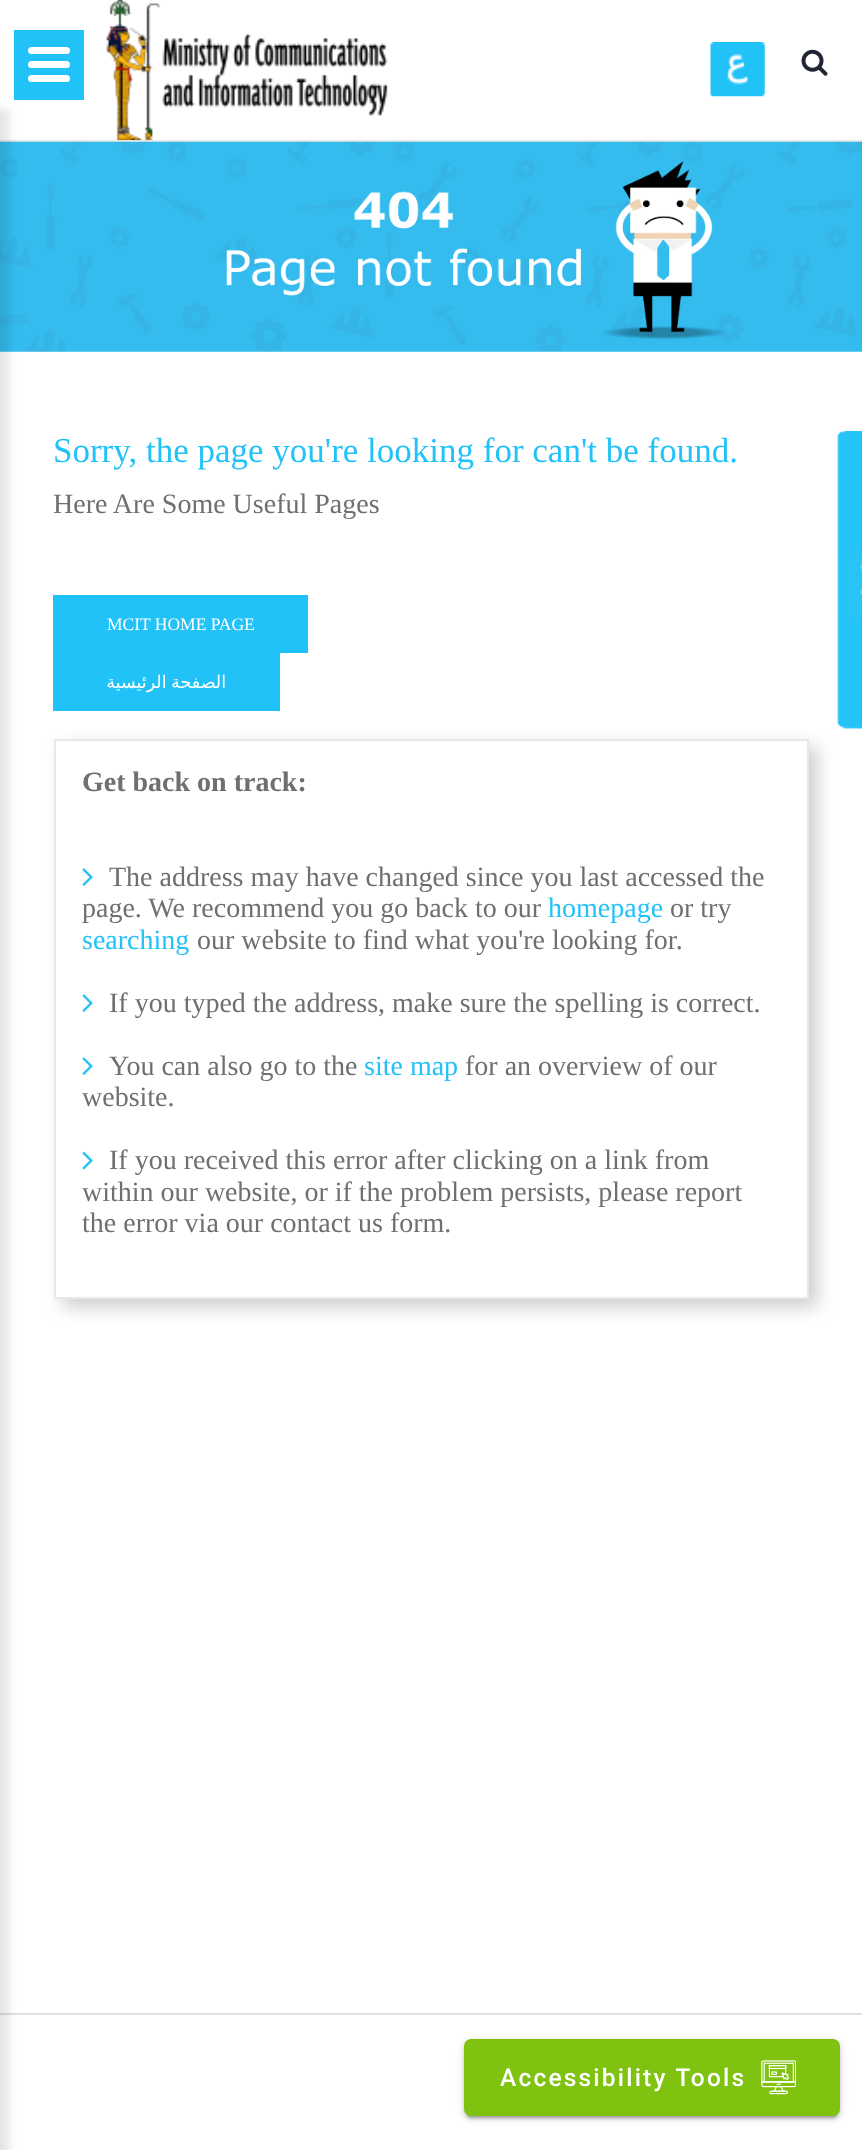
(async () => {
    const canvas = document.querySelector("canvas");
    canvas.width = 862;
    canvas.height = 2150;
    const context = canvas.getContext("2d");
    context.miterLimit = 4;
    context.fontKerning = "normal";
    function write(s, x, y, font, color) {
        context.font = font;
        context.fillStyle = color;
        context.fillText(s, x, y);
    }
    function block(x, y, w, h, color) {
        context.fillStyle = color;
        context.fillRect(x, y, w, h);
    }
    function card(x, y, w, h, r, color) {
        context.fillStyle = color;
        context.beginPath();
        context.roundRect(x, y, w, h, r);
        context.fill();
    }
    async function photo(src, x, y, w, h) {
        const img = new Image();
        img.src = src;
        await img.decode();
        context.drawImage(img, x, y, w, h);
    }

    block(0, 0, 862, 2150, "rgb(255, 255, 255)");
    block(0, 140, 862, 2, "rgb(232, 231, 231)");
    await photo("media/4.png", 0, 141, 862, 211);
    block(0, 2013, 862, 2, "rgb(224, 224, 224)");
    context.fillStyle = "rgba(0, 0, 0, 0.1)";
    context.filter = "blur(4.5px)";
    context.beginPath();
    context.rect(-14, 109, 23, 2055);
    context.fill();
    context.filter = "none";
    block(14, 30, 70, 70, "rgb(33, 194, 248)");
    card(28, 61, 42, 7, 3.5, "rgb(255, 255, 255)");
    card(28, 47, 42, 7, 3.5, "rgb(255, 255, 255)");
    card(28, 75, 42, 7, 3.5, "rgb(255, 255, 255)");
    await photo("media/1.png", 106, 0, 282, 140);
    await photo("media/2.png", 801, 49, 27, 27);
    await photo("media/3.png", 710, 42, 55, 55);
    write("Sorry, the page you're looking for can't be found.", 53, 462, "35px Liberation Serif", "rgb(33, 194, 248)");
    write("Here Are Some Useful Pages", 53, 513, "28px Liberation Serif", "rgb(111, 111, 110)");
    block(53, 595, 255, 58, "rgb(33, 194, 248)");
    write("MCIT HOME PAGE", 107, 630, "17.5px Liberation Serif", "rgb(255, 255, 255)");
    block(53, 653, 227, 58, "rgb(33, 194, 248)");
    context.wordSpacing = "-1px";
    context.direction = "rtl";
    write("الصفحة الرئيسية", 226, 688, "17.5px DejaVu Sans", "rgb(255, 255, 255)");
    context.save();
    context.beginPath();
    context.moveTo(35, 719);
    context.lineTo(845, 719);
    context.lineTo(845, 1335);
    context.lineTo(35, 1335);
    context.closePath();
    context.moveTo(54, 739);
    context.lineTo(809, 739);
    context.lineTo(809, 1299);
    context.lineTo(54, 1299);
    context.closePath();
    context.clip("evenodd");
    context.fillStyle = "rgba(0, 0, 0, 0.2)";
    context.filter = "blur(9px)";
    context.beginPath();
    context.rect(63, 747, 754, 560);
    context.fill();
    context.filter = "none";
    context.restore();
    context.strokeStyle = "rgb(232, 232, 232)";
    context.lineWidth = 2;
    context.strokeRect(55, 740, 753, 558);
    context.wordSpacing = "0px";
    context.direction = "ltr";
    write("Get back on track:", 82, 791, "bold 28px Liberation Serif", "rgb(111, 111, 110)");
    await photo("media/5.png", 82, 868, 11, 18);
    write("The address may have changed since you last accessed the", 109, 886, "28px Liberation Serif", "rgb(111, 111, 110)");
    write("page. We recommend you go back to our", 82, 917, "28px Liberation Serif", "rgb(111, 111, 110)");
    write("homepage", 548, 917, "28px Liberation Serif", "rgb(33, 194, 248)");
    write("or try", 670, 917, "28px Liberation Serif", "rgb(111, 111, 110)");
    write("searching", 82, 949, "28px Liberation Serif", "rgb(33, 194, 248)");
    write("our website to find what you're looking for.", 197, 949, "28px Liberation Serif", "rgb(111, 111, 110)");
    await photo("media/5.png", 82, 994, 11, 18);
    write("If you typed the address, make sure the spelling is correct.", 109, 1012, "28px Liberation Serif", "rgb(111, 111, 110)");
    await photo("media/5.png", 82, 1057, 11, 18);
    write("You can also go to the", 109, 1075, "28px Liberation Serif", "rgb(111, 111, 110)");
    write("site map", 364, 1075, "28px Liberation Serif", "rgb(33, 194, 248)");
    write("for an overview of our", 465, 1075, "28px Liberation Serif", "rgb(111, 111, 110)");
    write("website.", 82, 1106, "28px Liberation Serif", "rgb(111, 111, 110)");
    await photo("media/6.png", 82, 1151, 11, 19);
    write("If you received this error after clicking on a link from", 109, 1169, "28px Liberation Serif", "rgb(111, 111, 110)");
    write("within our website, or if the problem persists, please report", 82, 1201, "28px Liberation Serif", "rgb(111, 111, 110)");
    write("the error via our contact us form.", 82, 1232, "28px Liberation Serif", "rgb(111, 111, 110)");
    await photo("media/7.png", 837, 431, 25, 298);
    await photo("media/8.png", 837, 431, 25, 298);
    context.fillStyle = "rgba(0, 0, 0, 0.12)";
    context.filter = "blur(4.5px)";
    context.beginPath();
    context.roundRect(464, 2041, 376, 77, 7);
    context.fill();
    context.filter = "none";
    context.fillStyle = "rgba(0, 0, 0, 0.14)";
    context.filter = "blur(2px)";
    context.beginPath();
    context.roundRect(464, 2042, 376, 77, 7);
    context.fill();
    context.filter = "none";
    context.fillStyle = "rgba(0, 0, 0, 0.2)";
    context.filter = "blur(1px)";
    context.beginPath();
    context.roundRect(467, 2048, 370, 70, 4);
    context.fill();
    context.filter = "none";
    card(464, 2039, 376, 77, 7, "rgb(127, 194, 16)");
    context.letterSpacing = "2.2px";
    write("Accessibility Tools", 500, 2086, "500 24.5px Roboto", "rgb(255, 255, 255)");
    await photo("media/9.png", 761, 2060, 35, 35);
})();
